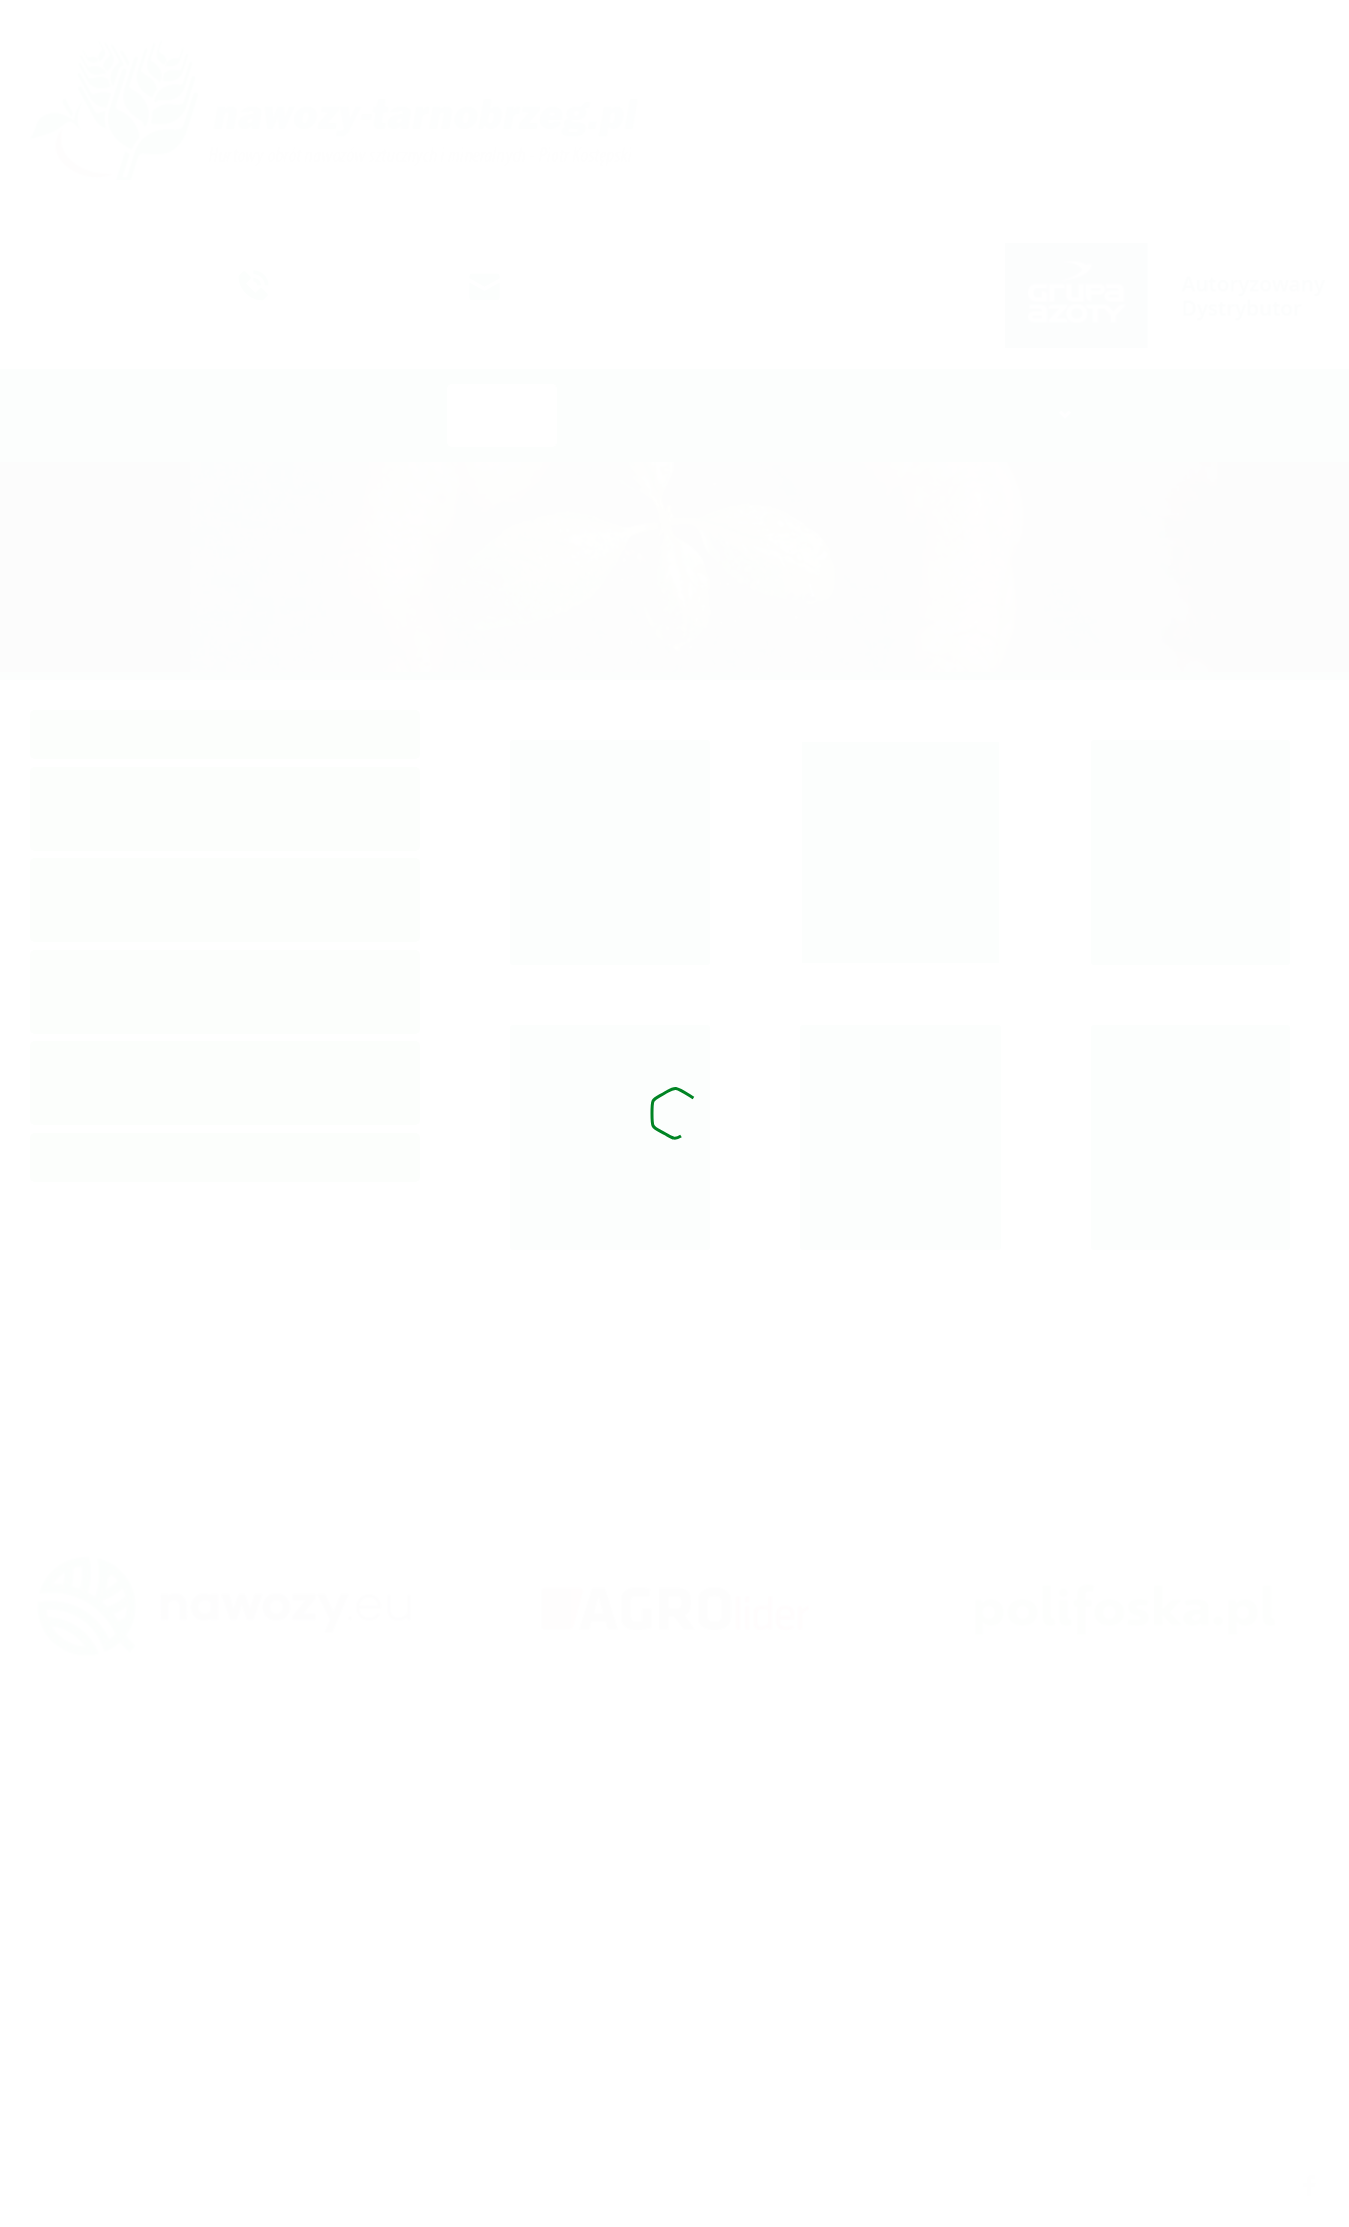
(async () => {
    const canvas = document.querySelector("canvas");
    canvas.width = 1349;
    canvas.height = 2227;
    const context = canvas.getContext("2d");
    context.miterLimit = 4;
    context.fontKerning = "normal";
    function block(x, y, w, h, color) {
        context.fillStyle = color;
        context.fillRect(x, y, w, h);
    }
    function card(x, y, w, h, r, color) {
        context.fillStyle = color;
        context.beginPath();
        context.roundRect(x, y, w, h, r);
        context.fill();
    }
    async function photo(src, x, y, w, h) {
        const img = new Image();
        img.src = src;
        await img.decode();
        context.drawImage(img, x, y, w, h);
    }

    block(0, 0, 1349, 2227, "rgb(255, 255, 255)");
    await photo("media/1.png", 30, 40, 608, 140);
    await photo("media/2.png", 238, 270, 31, 31);
    await photo("media/3.png", 469, 273, 31, 27);
    await photo("media/4.png", 1005, 243, 320, 105);
    block(0, 369, 1349, 93, "rgb(252, 254, 253)");
    card(447, 384, 110, 63, 5, "rgb(255, 255, 255)");
    await photo("media/5.png", 1059, 410, 12, 9);
    block(0, 462, 1349, 210, "rgb(252, 252, 252)");
    block(0, 672, 1349, 8, "rgb(252, 254, 253)");
    await photo("media/6.png", 190, 462, 1028, 210);
    card(30, 710, 390, 49, 5, "rgb(252, 254, 252)");
    card(30, 767, 390, 84, 5, "rgb(252, 254, 252)");
    card(30, 858, 390, 84, 5, "rgb(252, 254, 252)");
    card(30, 950, 390, 84, 5, "rgb(252, 254, 252)");
    card(30, 1041, 390, 84, 5, "rgb(252, 254, 252)");
    card(30, 1133, 390, 49, 5, "rgb(252, 254, 252)");
    card(510, 740, 200, 225, 3, "rgb(252, 254, 253)");
    block(802, 742, 197, 221, "rgb(252, 254, 253)");
    card(1091, 740, 199, 225, 3, "rgb(252, 254, 253)");
    card(510, 1025, 200, 225, 3, "rgb(252, 254, 253)");
    card(800, 1025, 201, 225, 3, "rgb(252, 254, 253)");
    card(1091, 1025, 199, 225, 3, "rgb(252, 254, 253)");
    await photo("media/7.png", 30, 1554, 386, 111);
    await photo("media/8.png", 540, 1587, 270, 44);
    await photo("media/9.png", 974, 1584, 302, 51);
    await photo("media/10.png", 1302, 2174, 14, 22);
    context.beginPath();
    context.moveTo(693.5, 1098);
    context.bezierCurveTo(690, 1096, 680, 1089, 676, 1088.5);
    context.bezierCurveTo(672, 1088, 668.5, 1091, 665.5, 1092.5);
    context.bezierCurveTo(652, 1100.5, 652, 1097.5, 652, 1113.5);
    context.bezierCurveTo(652, 1129, 652, 1126.5, 665.5, 1134);
    context.bezierCurveTo(672.5, 1138, 674.5, 1140, 681, 1136);
    context.strokeStyle = "rgb(0, 132, 35)";
    context.lineWidth = 3;
    context.lineJoin = "round";
    context.stroke();
})();
